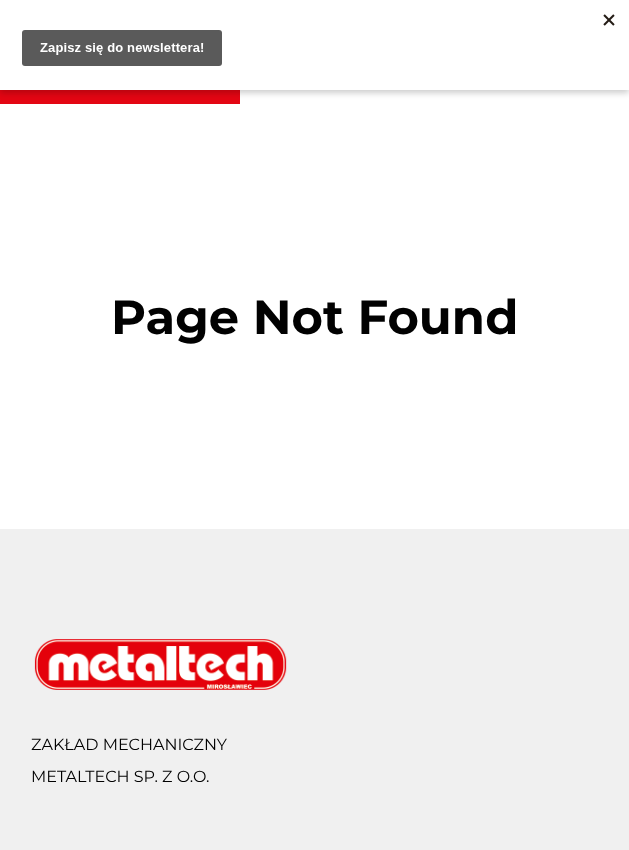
(async () => {
    const canvas = document.querySelector("canvas");
    canvas.width = 629;
    canvas.height = 850;
    const context = canvas.getContext("2d");
    context.miterLimit = 4;
    context.fontKerning = "normal";
    function write(s, x, y, font, color) {
        context.font = font;
        context.fillStyle = color;
        context.fillText(s, x, y);
    }
    function block(x, y, w, h, color) {
        context.fillStyle = color;
        context.fillRect(x, y, w, h);
    }
    async function photo(src, x, y, w, h) {
        const img = new Image();
        img.src = src;
        await img.decode();
        context.drawImage(img, x, y, w, h);
    }

    block(0, 0, 629, 850, "rgb(255, 255, 255)");
    block(0, 90, 240, 14, "rgb(227, 6, 19)");
    context.fillStyle = "rgba(0, 0, 0, 0.2)";
    context.filter = "blur(3px)";
    context.beginPath();
    context.rect(0, 3, 629, 90);
    context.fill();
    context.filter = "none";
    block(0, 0, 629, 90, "rgb(255, 255, 255)");
    await photo("media/1.png", 22, 14, 593, 52);
    write("Page Not Found", 111, 334, "bold 48px Montserrat", "rgb(1, 1, 1)");
    block(0, 529, 629, 321, "rgb(240, 240, 240)");
    await photo("media/2.png", 34, 639, 253, 51);
    write("ZAKŁAD MECHANICZNY", 31, 750, "16px Montserrat", "rgb(1, 1, 1)");
    write("METALTECH SP. Z O.O.", 31, 782, "16px Montserrat", "rgb(1, 1, 1)");
})();
